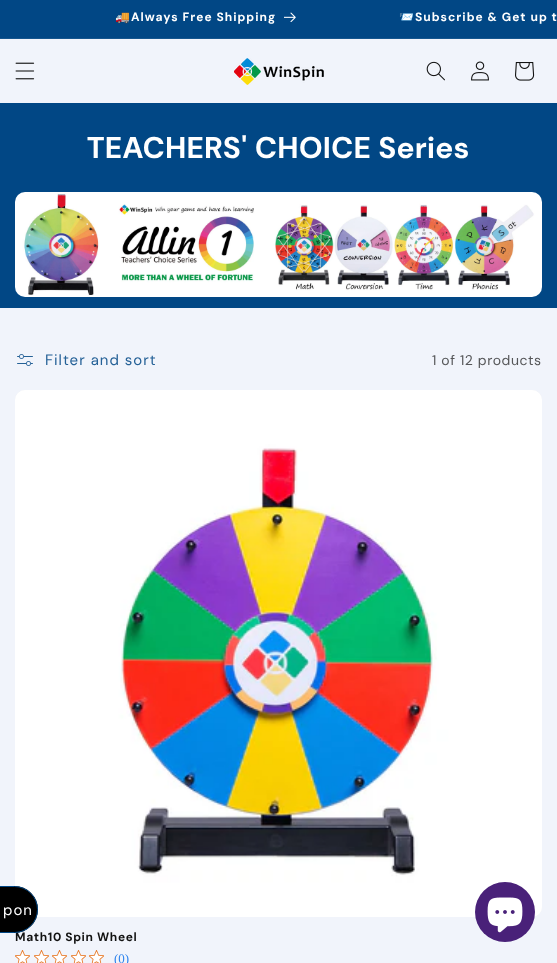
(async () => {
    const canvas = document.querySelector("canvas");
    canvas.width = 557;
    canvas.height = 963;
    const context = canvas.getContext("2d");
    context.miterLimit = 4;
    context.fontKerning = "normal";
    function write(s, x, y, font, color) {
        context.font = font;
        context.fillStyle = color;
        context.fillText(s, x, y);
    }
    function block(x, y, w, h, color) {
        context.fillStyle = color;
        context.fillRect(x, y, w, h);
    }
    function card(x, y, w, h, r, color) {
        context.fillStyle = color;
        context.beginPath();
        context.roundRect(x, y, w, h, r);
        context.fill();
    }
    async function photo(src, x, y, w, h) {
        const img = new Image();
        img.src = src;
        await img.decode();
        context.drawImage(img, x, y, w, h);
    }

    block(0, 0, 557, 963, "rgb(241, 244, 251)");
    block(0, 0, 557, 38, "rgb(1, 71, 133)");
    block(0, 38, 557, 1, "rgb(21, 86, 143)");
    context.letterSpacing = "1px";
    write("🚚", 115, 21, "bold 12px Noto Color Emoji", "rgb(255, 255, 255)");
    write("Always Free Shipping", 131, 21, "bold 12px 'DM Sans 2'", "rgb(255, 255, 255)");
    await photo("media/1.png", 284, 12, 12, 10);
    write("📨", 399, 21, "bold 12px Noto Color Emoji", "rgb(255, 255, 255)");
    write("Subscribe & Get up t", 415, 21, "bold 12px 'DM Sans 2'", "rgb(255, 255, 255)");
    await photo("media/2.png", 15, 62, 20, 18);
    await photo("media/3.png", 234, 58, 90, 27);
    await photo("media/4.png", 426, 61, 19, 20);
    await photo("media/5.png", 471, 61, 18, 20);
    await photo("media/6.png", 515, 62, 20, 19);
    block(0, 103, 557, 205, "rgb(1, 71, 133)");
    context.letterSpacing = "0.6px";
    write("TEACHERS' CHOICE Series", 87, 158, "bold 30px DM Sans", "rgb(255, 255, 255)");
    await photo("media/7.png", 15, 192, 527, 105);
    await photo("media/8.png", 17, 354, 16, 12);
    context.letterSpacing = "1px";
    write("Filter and sort", 45, 365, "15px DM Sans", "rgb(37, 97, 151)");
    context.letterSpacing = "0.6px";
    write("1 of 12 products", 432, 365, "14px 'DM Sans 2'", "rgb(85, 86, 88)");
    card(15, 390, 527, 527, 10, "rgb(243, 243, 243)");
    await photo("media/9.png", 15, 390, 527, 527);
    write("Math10 Spin Wheel", 15, 941, "bold 12px 'DM Sans 2'", "rgb(18, 18, 18)");
    await photo("media/10.png", 15, 950, 15, 13);
    await photo("media/10.png", 34, 950, 15, 13);
    await photo("media/10.png", 52, 950, 15, 13);
    await photo("media/10.png", 71, 950, 15, 13);
    await photo("media/10.png", 89, 950, 15, 13);
    context.letterSpacing = "0px";
    write("(0)", 114, 963, "13px Liberation Serif", "rgb(47, 132, 237)");
    card(-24, 886, 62, 47, 23.5, "rgb(0, 0, 0)");
    context.beginPath();
    context.roundRect(-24.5, 886.5, 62, 46, 23);
    context.strokeStyle = "rgb(1, 71, 133)";
    context.stroke();
    context.letterSpacing = "1px";
    write("pon", 3, 915, "15px DM Sans", "rgb(255, 255, 255)");
    context.fillStyle = "rgb(73, 33, 121)";
    context.beginPath();
    context.arc(505, 912, 30, 0, Math.PI * 2);
    context.fill();
    await photo("media/11.png", 487, 897, 36, 36);
})();
